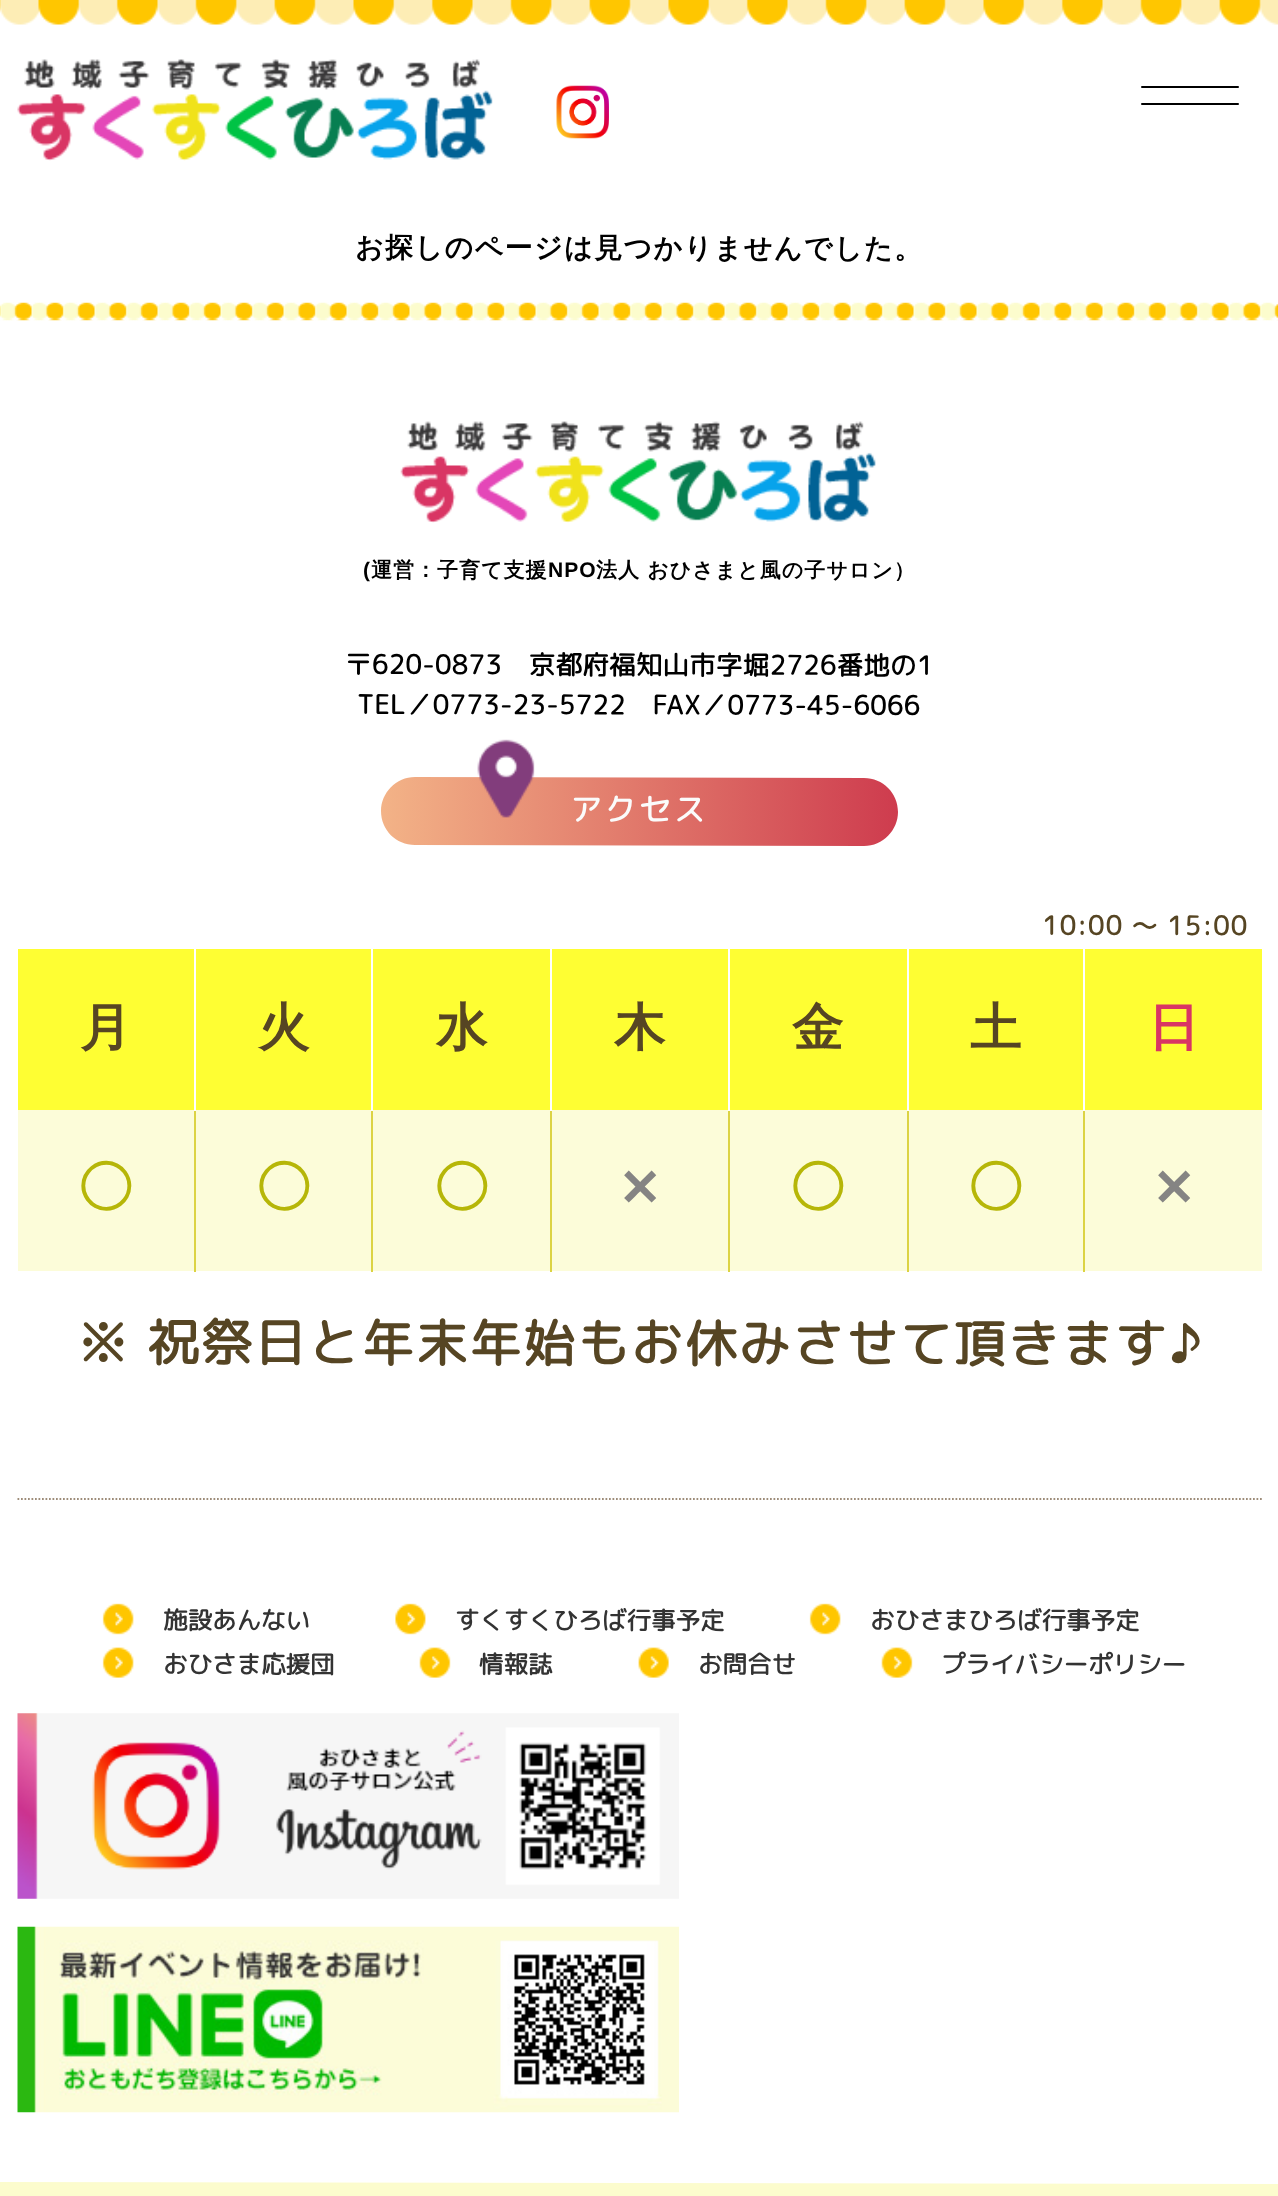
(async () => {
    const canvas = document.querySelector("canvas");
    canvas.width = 1278;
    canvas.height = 2196;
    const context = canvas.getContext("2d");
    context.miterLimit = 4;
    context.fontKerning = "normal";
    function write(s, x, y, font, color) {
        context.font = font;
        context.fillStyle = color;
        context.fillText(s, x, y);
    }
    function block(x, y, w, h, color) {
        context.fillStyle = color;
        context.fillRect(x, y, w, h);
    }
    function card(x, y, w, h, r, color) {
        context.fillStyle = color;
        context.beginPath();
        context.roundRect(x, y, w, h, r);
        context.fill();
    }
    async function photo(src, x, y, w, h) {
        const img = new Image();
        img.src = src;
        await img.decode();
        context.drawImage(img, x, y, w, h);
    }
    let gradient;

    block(0, 0, 1278, 2196, "rgb(255, 255, 255)");
    await photo("media/1.png", 0, 0, 1278, 25);
    await photo("media/2.png", 17, 59, 476, 102);
    await photo("media/3.png", 556, 85, 53, 54);
    card(1141, 86, 98, 2, 1, "rgb(0, 0, 0)");
    card(1141, 103, 98, 2, 1, "rgb(0, 0, 0)");
    context.letterSpacing = "1.4px";
    context.font = "bold 28px WenQuanYi Zen Hei";
    context.save();
    context.translate(355, 257);
    context.rotate(0.1 * Math.PI / 180);
    context.fillText("お探しのページは見つかりませんでした。", 0, 0);
    context.restore();
    await photo("media/4.png", 0, 302, 1278, 19);
    context.beginPath();
    context.moveTo(17.5, 1499);
    context.lineTo(1262, 1499);
    context.strokeStyle = "rgb(157, 140, 121)";
    context.lineWidth = 1.8;
    context.setLineDash([1.75, 1.75]);
    context.stroke();
    await photo("media/5.png", 400, 421, 476, 102);
    context.letterSpacing = "1px";
    context.font = "bold 21px Liberation Sans";
    context.save();
    context.translate(363, 577);
    context.rotate(0.1 * Math.PI / 180);
    context.fillText("(", 0, 0);
    context.restore();
    context.font = "bold 21px WenQuanYi Zen Hei";
    context.save();
    context.translate(371, 577);
    context.rotate(0.1 * Math.PI / 180);
    context.fillText("運営：子育て支援", 0, 0);
    context.restore();
    context.font = "bold 21px Liberation Sans";
    context.save();
    context.translate(548, 577);
    context.rotate(0.1 * Math.PI / 180);
    context.fillText("NPO", 0, 0);
    context.restore();
    context.font = "bold 21px WenQuanYi Zen Hei";
    context.save();
    context.translate(596, 577);
    context.rotate(0.1 * Math.PI / 180);
    context.fillText("法人 おひさまと風の子サロン）", 0, 0);
    context.restore();
    context.letterSpacing = "0.5px";
    context.font = "bold 26.25px 'Rounded Mplus 1c'";
    context.save();
    context.translate(345, 674);
    context.rotate(0.1 * Math.PI / 180);
    context.fillText("〒620-0873　京都府福知山市字堀2726番地の1", 0, 0);
    context.restore();
    context.save();
    context.translate(357, 714);
    context.rotate(0.1 * Math.PI / 180);
    context.fillText("TEL／0773-23-5722　FAX／0773-45-6066", 0, 0);
    context.restore();
    gradient = context.createLinearGradient(381, 811, 1053, 812);
    gradient.addColorStop(0, "rgb(243, 179, 135)");
    gradient.addColorStop(1, "rgb(195, 24, 61)");
    context.fillStyle = gradient;
    context.beginPath();
    context.moveTo(415, 777);
    context.lineTo(864, 778);
    context.bezierCurveTo(883, 778, 898, 793, 898, 812);
    context.bezierCurveTo(898, 830, 883, 846, 864, 846);
    context.lineTo(415, 845);
    context.bezierCurveTo(396, 845, 381, 830, 381, 811);
    context.bezierCurveTo(381, 793, 396, 777, 415, 777);
    context.closePath();
    context.fill();
    await photo("media/6.png", 477, 739, 58, 79);
    context.letterSpacing = "3px";
    context.font = "bold 31.5px 'Rounded Mplus 1c'";
    context.fillStyle = "rgb(251, 251, 251)";
    context.save();
    context.translate(570, 821);
    context.rotate(0.1 * Math.PI / 180);
    context.fillText("アクセス", 0, 0);
    context.restore();
    context.letterSpacing = "1.25px";
    context.font = "bold 26.25px 'Rounded Mplus 1c'";
    context.fillStyle = "rgb(86, 69, 35)";
    context.save();
    context.translate(1042, 935);
    context.rotate(0.1 * Math.PI / 180);
    context.fillText("10:00 ～ 15:00", 0, 0);
    context.restore();
    block(18, 949, 176, 161, "rgb(254, 254, 51)");
    block(194, 1110, 2, 162, "rgb(220, 211, 67)");
    block(194, 1110, 2, 1, "rgb(255, 255, 255)");
    context.letterSpacing = "0px";
    write("月", 80, 1045, "bold 51.2px WenQuanYi Zen Hei", "rgb(86, 69, 35)");
    block(196, 949, 175, 161, "rgb(254, 254, 51)");
    block(371, 1110, 2, 162, "rgb(220, 211, 67)");
    block(371, 1110, 2, 1, "rgb(255, 255, 255)");
    write("火", 258, 1045, "bold 51.2px WenQuanYi Zen Hei", "rgb(86, 69, 35)");
    block(373, 949, 177, 161, "rgb(254, 254, 51)");
    block(550, 1110, 2, 162, "rgb(220, 211, 67)");
    block(550, 1110, 2, 1, "rgb(255, 255, 255)");
    write("水", 436, 1045, "bold 51.2px WenQuanYi Zen Hei", "rgb(86, 69, 35)");
    block(552, 949, 176, 161, "rgb(254, 254, 51)");
    block(728, 1110, 2, 162, "rgb(220, 211, 67)");
    block(728, 1110, 2, 1, "rgb(255, 255, 255)");
    write("木", 614, 1045, "bold 51.2px WenQuanYi Zen Hei", "rgb(86, 69, 35)");
    block(730, 949, 177, 161, "rgb(254, 254, 51)");
    block(907, 1110, 2, 162, "rgb(220, 211, 67)");
    block(907, 1110, 2, 1, "rgb(255, 255, 255)");
    write("金", 792, 1045, "bold 51.2px WenQuanYi Zen Hei", "rgb(86, 69, 35)");
    block(909, 949, 174, 161, "rgb(254, 254, 51)");
    block(1083, 1110, 2, 162, "rgb(220, 211, 67)");
    block(1083, 1110, 2, 1, "rgb(255, 255, 255)");
    write("土", 970, 1045, "bold 51.2px WenQuanYi Zen Hei", "rgb(86, 69, 35)");
    block(1085, 949, 177, 161, "rgb(254, 254, 51)");
    write("日", 1148, 1045, "bold 51.2px WenQuanYi Zen Hei", "rgb(217, 53, 100)");
    block(18, 1110, 176, 161, "rgb(252, 252, 217)");
    write("◯", 80, 1206, "bold 51.2px IPAPGothic", "rgb(182, 182, 8)");
    block(196, 1110, 175, 161, "rgb(252, 252, 217)");
    write("◯", 258, 1206, "bold 51.2px IPAPGothic", "rgb(182, 182, 8)");
    block(373, 1110, 177, 161, "rgb(252, 252, 217)");
    write("◯", 436, 1206, "bold 51.2px IPAPGothic", "rgb(182, 182, 8)");
    block(552, 1110, 176, 161, "rgb(252, 252, 217)");
    write("✕", 618, 1206, "bold 51.2px DejaVu Sans", "rgb(133, 132, 131)");
    block(730, 1110, 177, 161, "rgb(252, 252, 217)");
    write("◯", 792, 1206, "bold 51.2px IPAPGothic", "rgb(182, 182, 8)");
    block(909, 1110, 174, 161, "rgb(252, 252, 217)");
    write("◯", 970, 1206, "bold 51.2px IPAPGothic", "rgb(182, 182, 8)");
    block(1085, 1110, 177, 161, "rgb(252, 252, 217)");
    write("✕", 1152, 1206, "bold 51.2px DejaVu Sans", "rgb(133, 132, 131)");
    context.letterSpacing = "2.6px";
    context.font = "bold 51.2px 'Rounded Mplus 1c'";
    context.fillStyle = "rgb(86, 69, 35)";
    context.save();
    context.translate(77, 1361);
    context.rotate(0.1 * Math.PI / 180);
    context.fillText("※", 0, 0);
    context.restore();
    context.save();
    context.translate(147, 1361);
    context.rotate(0.1 * Math.PI / 180);
    context.fillText("祝祭日と年末年始もお休みさせて頂きます♪", 0, 0);
    context.restore();
    await photo("media/7.png", 102, 1603, 32, 32);
    context.letterSpacing = "0px";
    context.font = "bold 24.5px 'Rounded Mplus 1c'";
    context.fillStyle = "rgb(51, 51, 51)";
    context.save();
    context.translate(163, 1629);
    context.rotate(0.1 * Math.PI / 180);
    context.fillText("施設あんない", 0, 0);
    context.restore();
    await photo("media/8.png", 395, 1603, 31, 32);
    context.save();
    context.translate(455, 1629);
    context.rotate(0.1 * Math.PI / 180);
    context.fillText("すくすくひろば行事予定", 0, 0);
    context.restore();
    await photo("media/9.png", 809, 1603, 32, 32);
    context.save();
    context.translate(870, 1629);
    context.rotate(0.1 * Math.PI / 180);
    context.fillText("おひさまひろば行事予定", 0, 0);
    context.restore();
    await photo("media/10.png", 102, 1647, 32, 31);
    context.save();
    context.translate(163, 1673);
    context.rotate(0.1 * Math.PI / 180);
    context.fillText("おひさま応援団", 0, 0);
    context.restore();
    await photo("media/11.png", 419, 1647, 32, 31);
    context.save();
    context.translate(479, 1673);
    context.rotate(0.1 * Math.PI / 180);
    context.fillText("情報誌", 0, 0);
    context.restore();
    await photo("media/12.png", 638, 1647, 31, 31);
    context.save();
    context.translate(698, 1673);
    context.rotate(0.1 * Math.PI / 180);
    context.fillText("お問合せ", 0, 0);
    context.restore();
    await photo("media/11.png", 881, 1647, 32, 31);
    context.save();
    context.translate(941, 1673);
    context.rotate(0.1 * Math.PI / 180);
    context.fillText("プライバシーポリシー", 0, 0);
    context.restore();
    await photo("media/13.png", 17, 1713, 662, 186);
    await photo("media/14.png", 17, 1926, 662, 187);
    context.fillStyle = "rgb(252, 252, 205)";
    context.beginPath();
    context.moveTo(0, 2182);
    context.lineTo(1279, 2184);
    context.lineTo(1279, 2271);
    context.lineTo(0, 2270);
    context.closePath();
    context.fill();
})();
